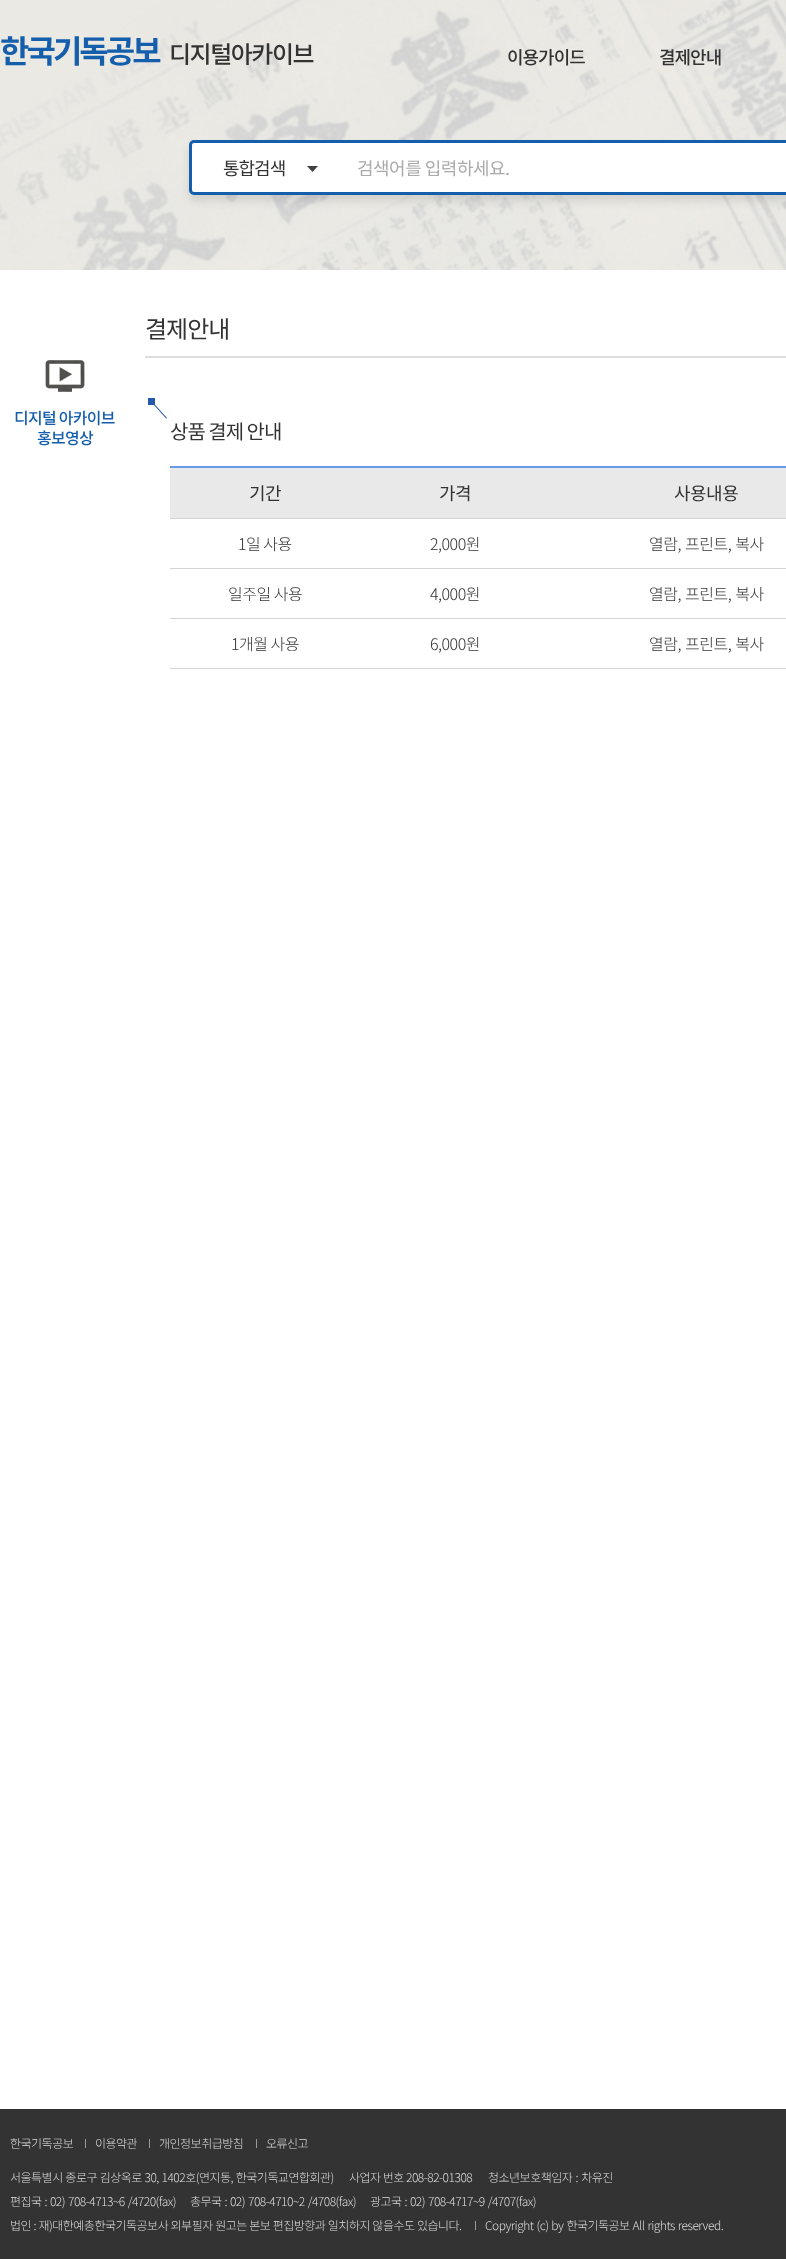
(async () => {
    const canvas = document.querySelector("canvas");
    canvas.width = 786;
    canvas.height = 2259;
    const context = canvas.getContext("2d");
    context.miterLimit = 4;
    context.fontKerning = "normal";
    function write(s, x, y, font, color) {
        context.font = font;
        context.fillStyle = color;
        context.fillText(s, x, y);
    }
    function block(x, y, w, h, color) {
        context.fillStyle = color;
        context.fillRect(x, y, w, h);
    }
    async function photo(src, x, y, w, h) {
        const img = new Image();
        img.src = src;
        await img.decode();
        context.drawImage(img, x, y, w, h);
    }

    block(0, 0, 786, 2259, "rgb(255, 255, 255)");
    await photo("media/1.png", 0, 0, 786, 270);
    context.letterSpacing = "-3px";
    write("한국기독공보", 0, 63, "bold 32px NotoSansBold", "rgb(21, 94, 172)");
    context.letterSpacing = "-1.5px";
    write("디지털아카이브", 169, 63, "500 24px Noto Sans KR", "rgb(51, 51, 51)");
    context.letterSpacing = "-1px";
    write("이용가이드", 507, 64, "500 18px Noto Sans KR", "rgb(51, 51, 51)");
    write("결제안내", 659, 64, "500 18px Noto Sans KR", "rgb(51, 51, 51)");
    context.fillStyle = "rgba(0, 0, 0, 0.1)";
    context.filter = "blur(4px)";
    context.beginPath();
    context.roundRect(189, 146, 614, 55, 5);
    context.fill();
    context.filter = "none";
    context.fillStyle = "rgb(255, 255, 255)";
    context.beginPath();
    context.roundRect(190.5, 141.5, 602, 52, 3.5);
    context.fill();
    context.strokeStyle = "rgb(21, 94, 172)";
    context.lineWidth = 3;
    context.stroke();
    await photo("media/2.png", 307, 166, 11, 6);
    write("통합검색", 223, 175, "18px Noto Sans KR", "rgb(51, 51, 51)");
    context.letterSpacing = "-0.5px";
    write("검색어를 입력하세요.", 357, 175, "18px Noto Sans KR", "rgb(170, 170, 170)");
    block(145, 356, 641, 2, "rgb(221, 221, 221)");
    context.letterSpacing = "-1px";
    write("결제안내", 145, 338, "24px Noto Sans KR", "rgb(51, 51, 51)");
    await photo("media/3.png", 45, 360, 40, 32);
    context.letterSpacing = "-0.75px";
    write("디지털 아카이브", 14, 424, "500 16px Noto Sans KR", "rgb(21, 94, 172)");
    write("홍보영상", 37, 444, "500 16px Noto Sans KR", "rgb(21, 94, 172)");
    await photo("media/4.png", 148, 398, 19, 21);
    context.letterSpacing = "-1px";
    write("상품 결제 안내", 170, 439, "20px Noto Sans KR", "rgb(51, 51, 51)");
    block(170, 466, 616, 2, "rgb(105, 153, 231)");
    block(170, 468, 616, 50, "rgb(233, 233, 233)");
    context.letterSpacing = "-0.5px";
    write("기간", 249, 500, "18px Noto Sans KR", "rgb(51, 51, 51)");
    write("가격", 439, 500, "18px Noto Sans KR", "rgb(51, 51, 51)");
    block(170, 518, 616, 1, "rgb(213, 213, 213)");
    write("사용내용", 674, 500, "18px Noto Sans KR", "rgb(51, 51, 51)");
    write("1일 사용", 238, 550, "300 16px Noto Sans KR", "rgb(51, 51, 51)");
    write("2,000원", 430, 550, "300 16px Noto Sans KR", "rgb(51, 51, 51)");
    block(170, 568, 616, 1, "rgb(213, 213, 213)");
    context.wordSpacing = "1px";
    write("열람, 프린트, 복사", 649, 550, "300 16px Noto Sans KR", "rgb(51, 51, 51)");
    context.wordSpacing = "0px";
    write("일주일 사용", 228, 600, "300 16px Noto Sans KR", "rgb(51, 51, 51)");
    write("4,000원", 430, 600, "300 16px Noto Sans KR", "rgb(51, 51, 51)");
    block(170, 618, 616, 1, "rgb(213, 213, 213)");
    context.wordSpacing = "1px";
    write("열람, 프린트, 복사", 649, 600, "300 16px Noto Sans KR", "rgb(51, 51, 51)");
    context.wordSpacing = "0px";
    write("1개월 사용", 231, 650, "300 16px Noto Sans KR", "rgb(51, 51, 51)");
    write("6,000원", 430, 650, "300 16px Noto Sans KR", "rgb(51, 51, 51)");
    block(170, 668, 616, 1, "rgb(213, 213, 213)");
    context.wordSpacing = "1px";
    write("열람, 프린트, 복사", 649, 650, "300 16px Noto Sans KR", "rgb(51, 51, 51)");
    block(0, 2109, 786, 150, "rgb(51, 51, 51)");
    context.wordSpacing = "0px";
    write("한국기독공보", 10, 2148, "300 12px Noto Sans KR", "rgb(221, 221, 221)");
    block(85, 2139, 1, 9, "rgb(153, 153, 153)");
    write("이용약관", 95, 2148, "300 12px Noto Sans KR", "rgb(221, 221, 221)");
    block(149, 2139, 1, 9, "rgb(153, 153, 153)");
    write("개인정보취급방침", 159, 2148, "300 12px Noto Sans KR", "rgb(221, 221, 221)");
    block(256, 2139, 1, 9, "rgb(153, 153, 153)");
    write("오류신고", 266, 2148, "300 12px Noto Sans KR", "rgb(221, 221, 221)");
    context.wordSpacing = "0.5px";
    write("서울특별시 종로구 김상옥로 30, 1402호(연지동, 한국기독교연합회관)", 10, 2182, "300 12px Noto Sans KR", "rgb(221, 221, 221)");
    context.wordSpacing = "0px";
    write("사업자 번호 208-82-01308", 349, 2182, "300 12px Noto Sans KR", "rgb(221, 221, 221)");
    context.wordSpacing = "1px";
    write("청소년보호책임자 : 차유진", 488, 2182, "300 12px Noto Sans KR", "rgb(221, 221, 221)");
    context.wordSpacing = "0.75px";
    write("편집국 : 02) 708-4713~6 /4720(fax)", 10, 2206, "300 12px Noto Sans KR", "rgb(221, 221, 221)");
    write("총무국 : 02) 708-4710~2 /4708(fax)", 190, 2206, "300 12px Noto Sans KR", "rgb(221, 221, 221)");
    write("광고국 : 02) 708-4717~9 /4707(fax)", 370, 2206, "300 12px Noto Sans KR", "rgb(221, 221, 221)");
    context.wordSpacing = "0.25px";
    write("법인 : 재)대한예총한국기독공보사 외부필자 원고는 본보 편집방향과 일치하지 않을수도 있습니다.", 10, 2230, "300 12px Noto Sans KR", "rgb(221, 221, 221)");
    block(475, 2221, 1, 9, "rgb(153, 153, 153)");
    context.wordSpacing = "0.75px";
    write("Copyright (c) by 한국기독공보 All rights reserved.", 485, 2230, "300 12px Noto Sans KR", "rgb(221, 221, 221)");
})();
